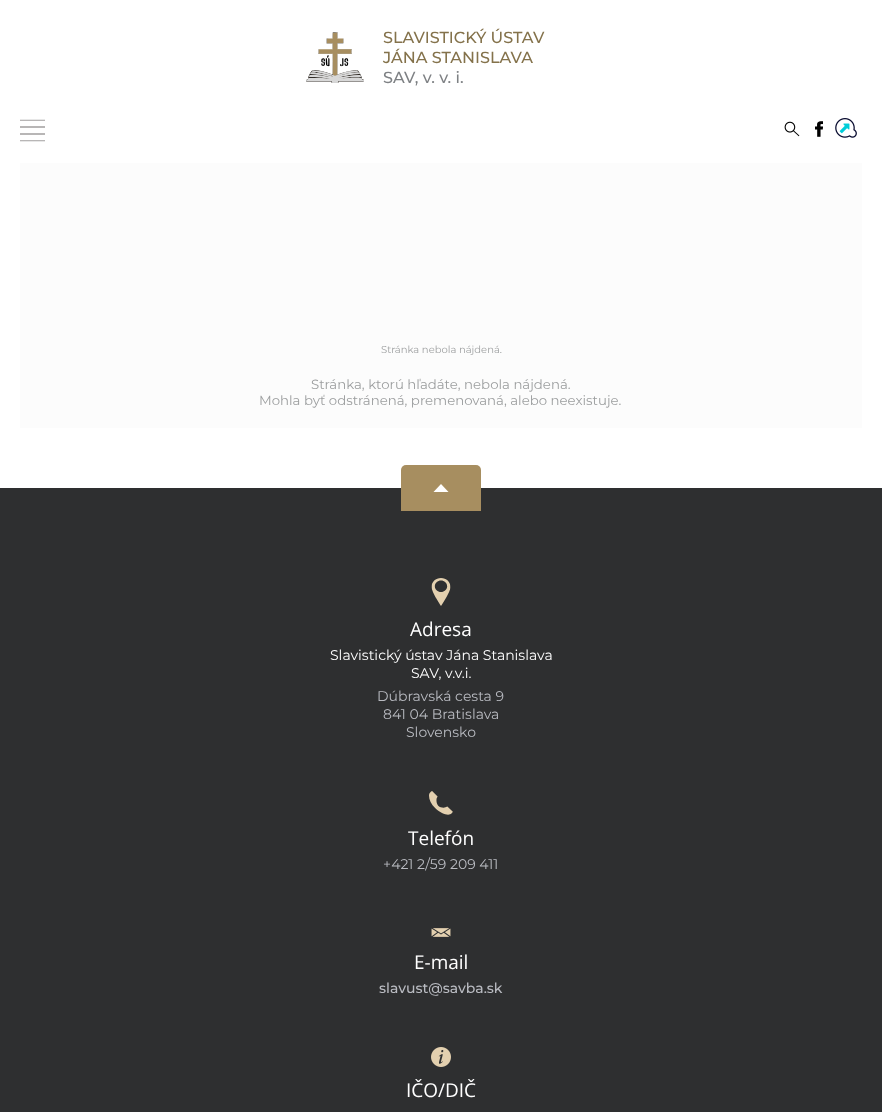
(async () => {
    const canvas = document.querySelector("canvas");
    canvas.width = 882;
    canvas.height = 1112;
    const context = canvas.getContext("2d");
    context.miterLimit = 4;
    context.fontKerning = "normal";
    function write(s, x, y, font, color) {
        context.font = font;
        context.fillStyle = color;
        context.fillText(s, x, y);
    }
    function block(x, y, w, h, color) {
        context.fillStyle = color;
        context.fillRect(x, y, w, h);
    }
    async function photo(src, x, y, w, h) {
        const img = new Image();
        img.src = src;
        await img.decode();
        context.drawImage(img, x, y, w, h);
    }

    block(0, 0, 882, 1112, "rgb(255, 255, 255)");
    await photo("media/1.png", 306, 32, 58, 51);
    write("SLAVISTICKÝ ÚSTAV", 383, 43, "500 16px Montserrat", "rgb(132, 114, 75)");
    write("JÁNA STANISLAVA", 383, 63, "500 16px Montserrat", "rgb(132, 114, 75)");
    write("SAV, v. v. i.", 383, 83, "500 16px Montserrat", "rgb(126, 129, 132)");
    await photo("media/2.png", 20, 119, 25, 23);
    await photo("media/3.png", 784, 121, 16, 16);
    await photo("media/4.png", 815, 121, 8, 16);
    await photo("media/5.png", 835, 118, 22, 20);
    block(20, 163, 842, 265, "rgb(252, 252, 252)");
    write("Stránka nebola nájdená.", 381, 353, "10px Montserrat", "rgb(156, 158, 159)");
    write("Stránka, ktorú hľadáte, nebola nájdená.", 311, 389, "13.3px Montserrat", "rgb(156, 158, 159)");
    write("Mohla byť odstránená, premenovaná, alebo neexistuje.", 259, 405, "13.3px Montserrat", "rgb(156, 158, 159)");
    block(0, 488, 882, 624, "rgb(46, 47, 48)");
    context.fillStyle = "rgb(167, 142, 96)";
    context.beginPath();
    context.roundRect(401, 465, 80, 46, [5, 5, 0, 0]);
    context.fill();
    context.fillStyle = "rgb(255, 255, 255)";
    context.beginPath();
    context.moveTo(441, 484);
    context.lineTo(433.5, 492);
    context.lineTo(448.5, 492);
    context.closePath();
    context.fill();
    await photo("media/6.png", 431, 578, 20, 28);
    write("Adresa", 410, 636, "19px Open Sans", "rgb(255, 255, 255)");
    write("Slavistický ústav Jána Stanislava", 330, 660, "14px Montserrat", "rgb(255, 255, 255)");
    write("SAV, v.v.i.", 411, 678, "14px Montserrat", "rgb(255, 255, 255)");
    write("Dúbravská cesta 9", 377, 701, "14px Montserrat", "rgb(185, 187, 193)");
    write("841 04 Bratislava", 383, 719, "14px Montserrat", "rgb(185, 187, 193)");
    write("Slovensko", 406, 737, "14px Montserrat", "rgb(185, 187, 193)");
    await photo("media/7.png", 429, 791, 24, 24);
    write("Telefón", 408, 845, "19px Open Sans", "rgb(255, 255, 255)");
    write("+421 2/59 209 411", 383, 869, "14px Montserrat", "rgb(185, 187, 193)");
    await photo("media/8.png", 431, 928, 20, 9);
    write("E-mail", 414, 969, "19px Open Sans", "rgb(255, 255, 255)");
    write("slavust@savba.sk", 379, 993, "500 14px Montserrat", "rgb(185, 187, 193)");
    await photo("media/9.png", 431, 1047, 20, 20);
    write("IČO/DIČ", 406, 1097, "19px Open Sans", "rgb(255, 255, 255)");
})();
